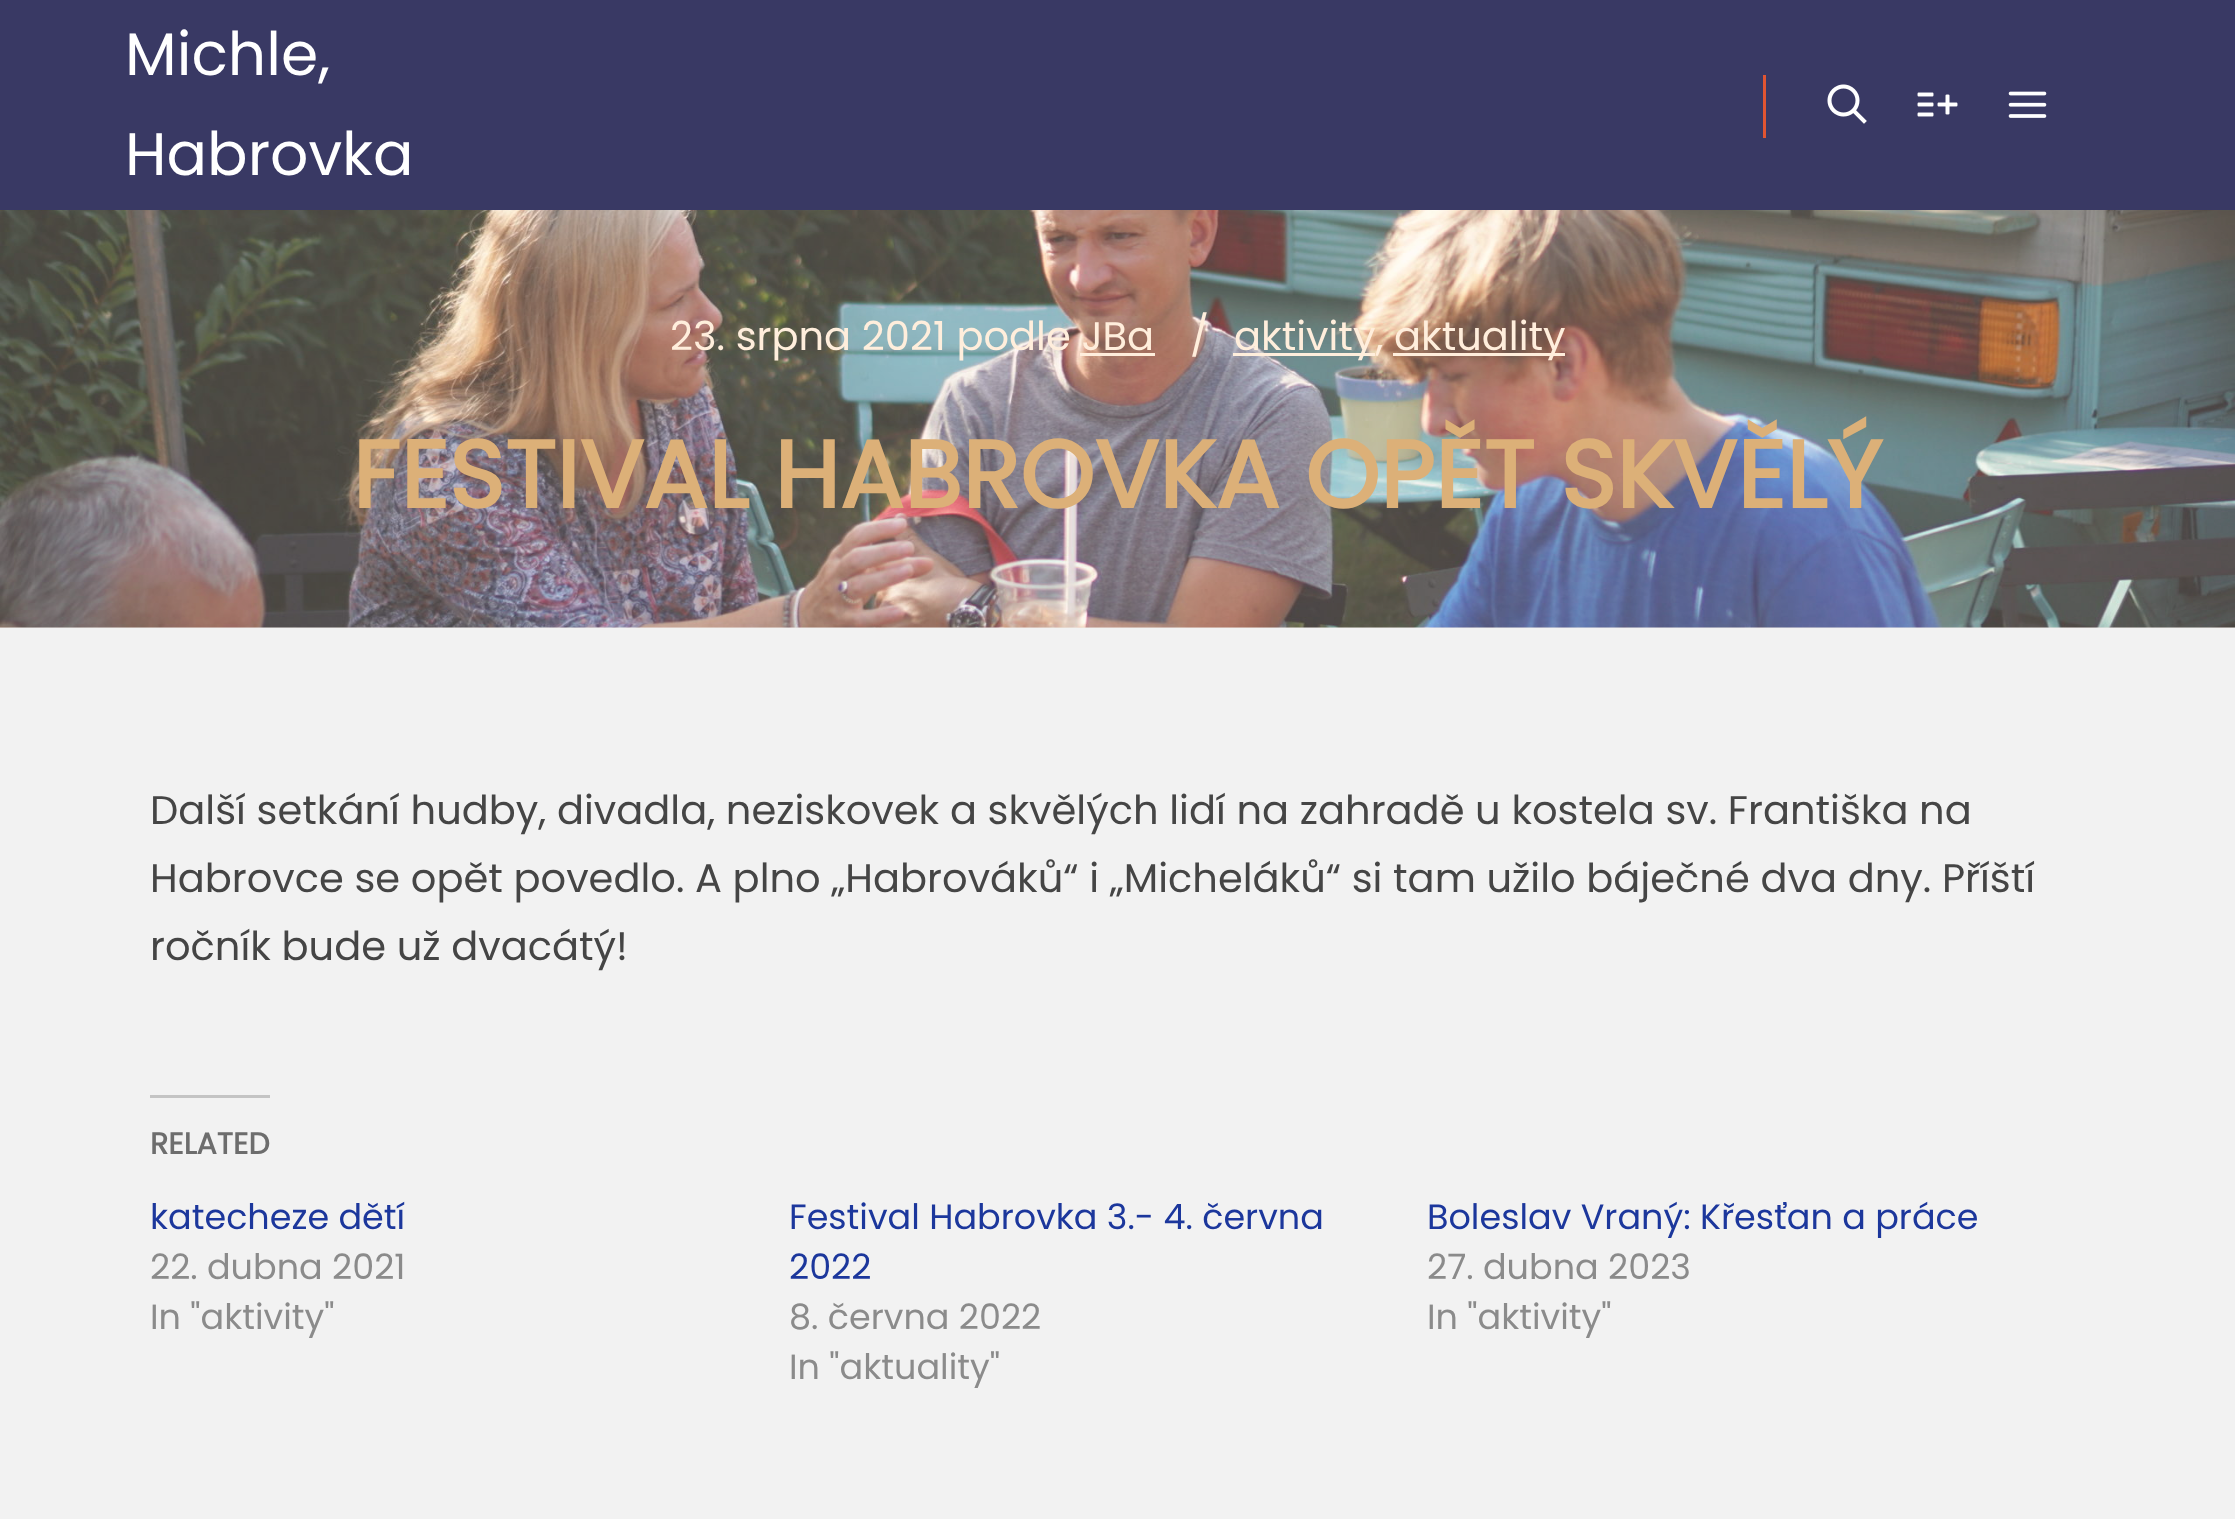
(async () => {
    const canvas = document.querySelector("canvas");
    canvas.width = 2235;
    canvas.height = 1519;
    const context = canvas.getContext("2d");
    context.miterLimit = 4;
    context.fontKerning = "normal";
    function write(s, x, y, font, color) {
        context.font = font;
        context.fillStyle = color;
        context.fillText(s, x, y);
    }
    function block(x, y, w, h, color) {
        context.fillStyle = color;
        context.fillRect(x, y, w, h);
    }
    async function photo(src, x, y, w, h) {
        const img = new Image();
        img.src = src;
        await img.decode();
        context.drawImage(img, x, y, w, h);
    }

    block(0, 0, 2235, 1519, "rgb(238, 234, 230)");
    block(0, 0, 2235, 210, "rgb(57, 57, 100)");
    write("Michle,", 125, 75, "60px Poppins", "rgb(255, 255, 255)");
    write("Habrovka", 125, 175, "60px Poppins", "rgb(255, 255, 255)");
    block(1763, 75, 3, 63, "rgb(225, 85, 50)");
    await photo("media/1.png", 1827, 84, 40, 40);
    await photo("media/2.png", 1917, 92, 41, 25);
    await photo("media/3.png", 2008, 91, 39, 27);
    await photo("media/4.png", 0, 210, 2235, 418);
    write("23. srpna 2021 podle JBa", 670, 350, "40px Poppins", "rgb(255, 238, 220)");
    write("/", 1190, 350, "40px Poppins", "rgb(255, 238, 220)");
    block(1233, 353, 142, 3, "rgb(255, 238, 220)");
    write("aktivity,", 1234, 350, "40px Poppins", "rgb(255, 238, 220)");
    block(1393, 353, 172, 3, "rgb(255, 238, 220)");
    write("aktuality", 1394, 350, "40px Poppins", "rgb(255, 238, 220)");
    block(1080, 353, 75, 3, "rgb(255, 238, 220)");
    write("FESTIVAL HABROVKA OPĚT SKVĚLÝ", 352, 508, "bold 95px Poppins", "rgb(220, 176, 120)");
    block(0, 628, 2235, 891, "rgb(242, 242, 242)");
    write("Další setkání hudby, divadla, neziskovek a skvělých lidí na zahradě u kostela sv. Františka na", 150, 824, "40px Poppins", "rgb(69, 69, 69)");
    write("Habrovce se opět povedlo. A plno „Habrováků“ i „Micheláků“ si tam užilo báječné dva dny. Příští", 150, 892, "40px Poppins", "rgb(69, 69, 69)");
    write("ročník bude už dvacátý!", 150, 960, "40px Poppins", "rgb(69, 69, 69)");
    block(150, 1095, 120, 3, "rgb(196, 196, 196)");
    write("RELATED", 150, 1154, "bold 30px Poppins", "rgb(109, 109, 109)");
    write("katecheze dětí", 150, 1229, "35px Poppins", "rgb(28, 55, 156)");
    write("22. dubna 2021", 150, 1279, "35px Poppins", "rgb(139, 139, 139)");
    write("In \"aktivity\"", 150, 1329, "35px Poppins", "rgb(139, 139, 139)");
    write("Festival Habrovka 3.- 4. června", 789, 1229, "35px Poppins", "rgb(28, 55, 156)");
    write("2022", 789, 1279, "35px Poppins", "rgb(28, 55, 156)");
    write("8. června 2022", 789, 1329, "35px Poppins", "rgb(139, 139, 139)");
    write("In \"aktuality\"", 789, 1379, "35px Poppins", "rgb(139, 139, 139)");
    write("Boleslav Vraný: Křesťan a práce", 1427, 1229, "35px Poppins", "rgb(28, 55, 156)");
    write("27. dubna 2023", 1427, 1279, "35px Poppins", "rgb(139, 139, 139)");
    write("In \"aktivity\"", 1427, 1329, "35px Poppins", "rgb(139, 139, 139)");
})();
